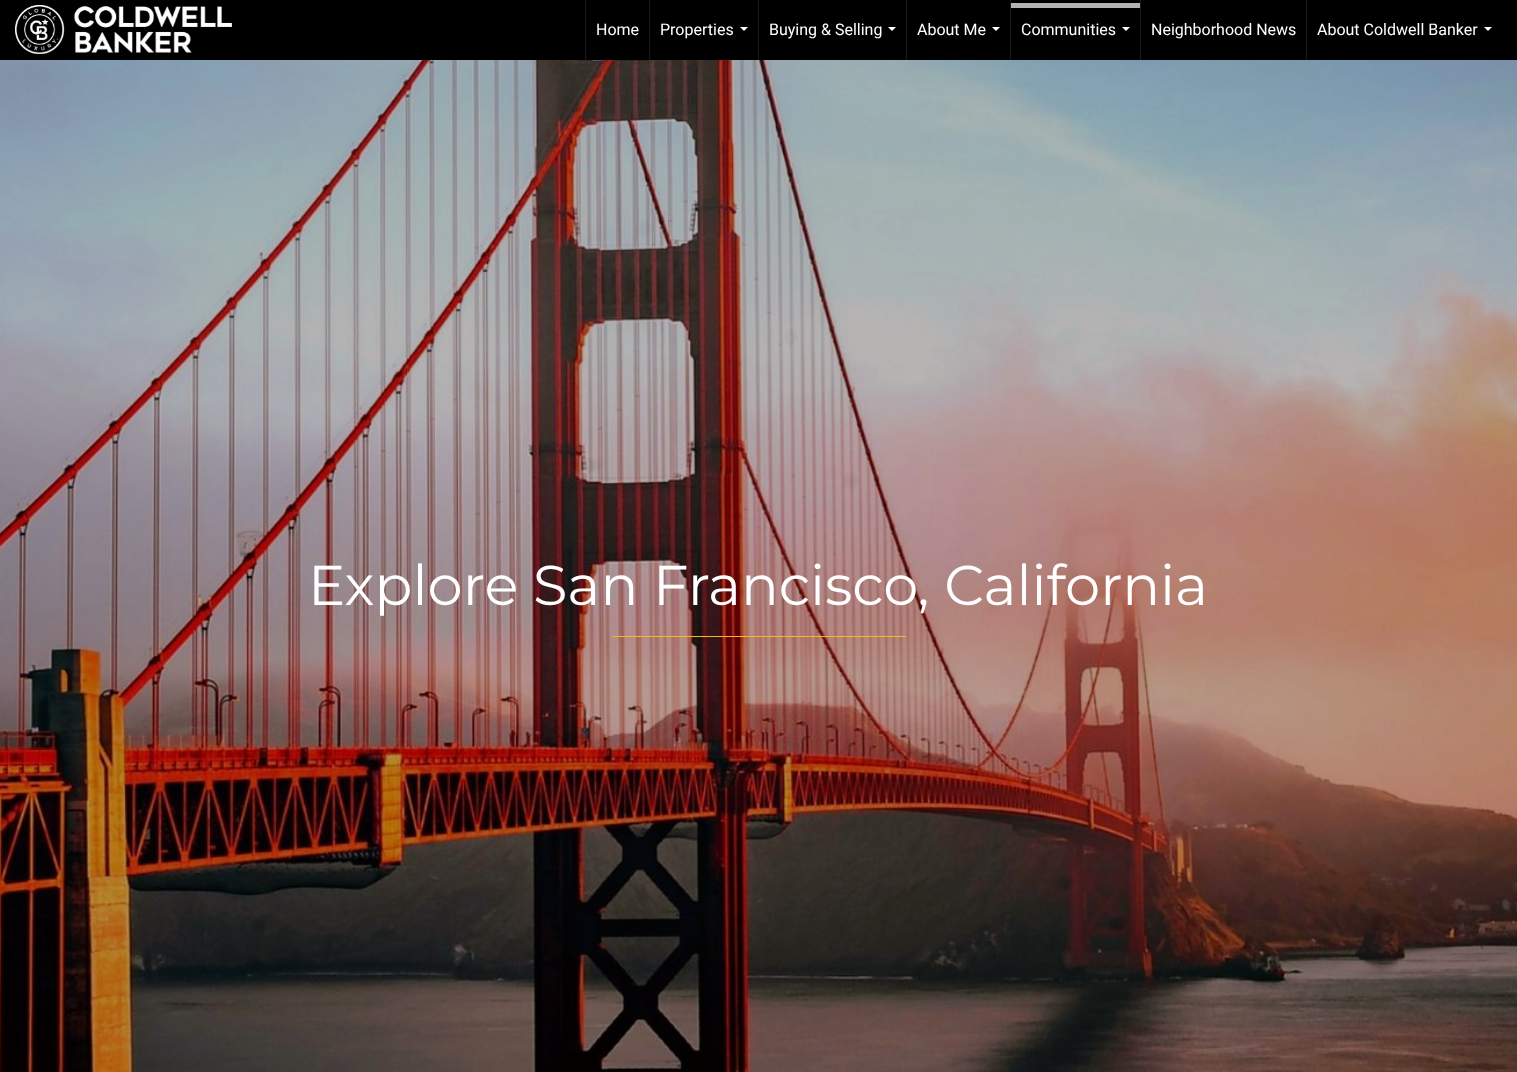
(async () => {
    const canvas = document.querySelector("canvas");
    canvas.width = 1517;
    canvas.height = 1072;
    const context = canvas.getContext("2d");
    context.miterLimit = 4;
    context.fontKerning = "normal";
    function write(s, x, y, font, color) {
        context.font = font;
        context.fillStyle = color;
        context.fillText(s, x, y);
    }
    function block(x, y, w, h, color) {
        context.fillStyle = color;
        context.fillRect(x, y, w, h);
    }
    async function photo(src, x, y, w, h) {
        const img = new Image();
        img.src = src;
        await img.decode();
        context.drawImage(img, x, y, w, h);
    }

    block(0, 0, 1517, 1072, "rgb(255, 255, 255)");
    block(0, 0, 1517, 60, "rgb(0, 0, 0)");
    await photo("media/1.png", 15, 5, 217, 49);
    block(585, 0, 1, 60, "rgb(26, 26, 26)");
    write("Home", 596, 35, "16px Roboto", "rgb(255, 255, 255)");
    block(649, 0, 1, 60, "rgb(26, 26, 26)");
    write("Properties", 660, 35, "16px Roboto", "rgb(255, 255, 255)");
    context.beginPath();
    context.moveTo(740, 27);
    context.lineTo(748, 27);
    context.lineTo(744, 31);
    context.closePath();
    context.fill();
    block(758, 0, 1, 60, "rgb(26, 26, 26)");
    write("Buying & Selling", 769, 35, "16px Roboto", "rgb(255, 255, 255)");
    context.beginPath();
    context.moveTo(888, 27);
    context.lineTo(896, 27);
    context.lineTo(892, 31);
    context.closePath();
    context.fill();
    block(906, 0, 1, 60, "rgb(26, 26, 26)");
    write("About Me", 917, 35, "16px Roboto", "rgb(255, 255, 255)");
    context.beginPath();
    context.moveTo(992, 27);
    context.lineTo(1000, 27);
    context.lineTo(996, 31);
    context.closePath();
    context.fill();
    block(1010, 0, 1, 60, "rgb(26, 26, 26)");
    block(1011, 3, 129, 5, "rgb(179, 179, 179)");
    write("Communities", 1021, 35, "16px Roboto", "rgb(255, 255, 255)");
    context.beginPath();
    context.moveTo(1122, 27);
    context.lineTo(1130, 27);
    context.lineTo(1126, 31);
    context.closePath();
    context.fill();
    block(1140, 0, 1, 60, "rgb(26, 26, 26)");
    write("Neighborhood News", 1151, 35, "16px Roboto", "rgb(255, 255, 255)");
    block(1306, 0, 1, 60, "rgb(26, 26, 26)");
    write("About Coldwell Banker", 1317, 35, "16px Roboto", "rgb(255, 255, 255)");
    context.beginPath();
    context.moveTo(1484, 27);
    context.lineTo(1492, 27);
    context.lineTo(1488, 31);
    context.closePath();
    context.fill();
    await photo("media/2.png", 0, 60, 1517, 1012);
    write("Explore San Francisco, California", 308, 605, "100 56px Montserrat", "rgb(255, 255, 255)");
    block(612, 636, 294, 1, "rgb(247, 185, 26)");
})();
